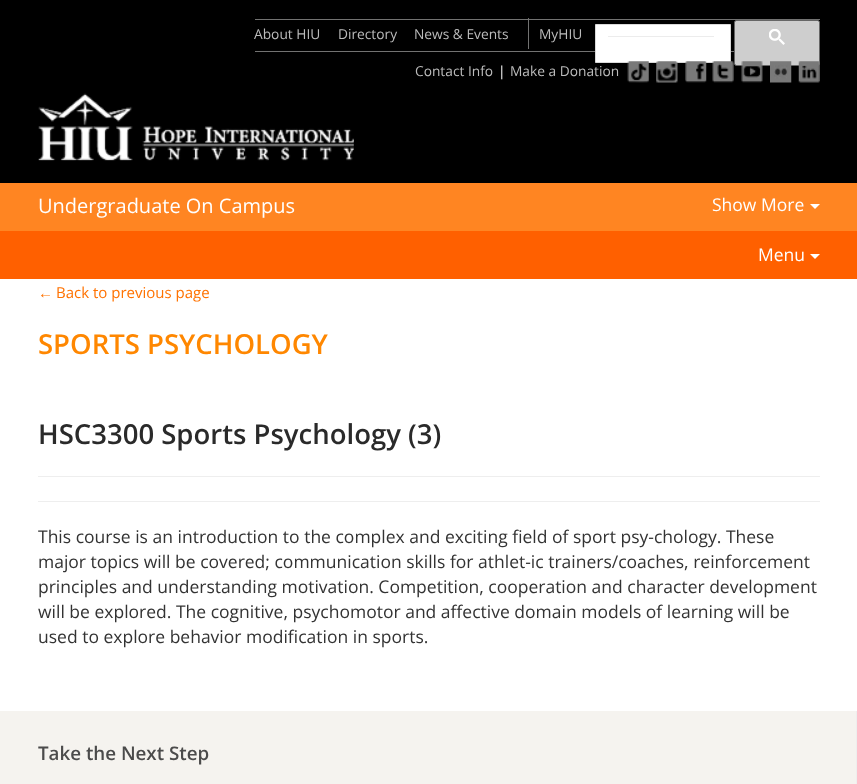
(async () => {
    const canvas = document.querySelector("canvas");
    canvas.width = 857;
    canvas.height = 784;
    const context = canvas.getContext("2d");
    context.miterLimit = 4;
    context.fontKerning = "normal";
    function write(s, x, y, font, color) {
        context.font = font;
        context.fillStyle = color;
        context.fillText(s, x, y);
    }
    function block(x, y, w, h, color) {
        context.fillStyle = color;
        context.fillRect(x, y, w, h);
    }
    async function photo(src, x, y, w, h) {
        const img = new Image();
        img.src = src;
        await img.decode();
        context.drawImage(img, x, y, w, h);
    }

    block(0, 0, 857, 784, "rgb(255, 255, 255)");
    block(0, 0, 857, 183, "rgb(0, 0, 0)");
    block(255, 19, 565, 1, "rgb(114, 114, 113)");
    block(255, 51, 479, 1, "rgb(114, 114, 113)");
    write("About HIU", 254, 39, "13.75px Open Sans", "rgb(187, 187, 187)");
    write("Directory", 338, 39, "13.75px Open Sans", "rgb(187, 187, 187)");
    write("News & Events", 414, 39, "13.75px Open Sans", "rgb(187, 187, 187)");
    block(528, 18, 1, 31, "rgb(114, 114, 113)");
    write("MyHIU", 539, 39, "13.75px Open Sans", "rgb(187, 187, 187)");
    context.fillStyle = "rgb(255, 255, 255)";
    context.beginPath();
    context.rect(595.5, 24.5, 135, 38);
    context.fill();
    context.strokeStyle = "rgb(217, 217, 217)";
    context.stroke();
    block(608, 36, 106, 1, "rgb(236, 236, 236)");
    context.fillStyle = "rgb(206, 206, 206)";
    context.beginPath();
    context.roundRect(734.5, 20.5, 85, 45, 2);
    context.fill();
    context.strokeStyle = "rgb(102, 102, 102)";
    context.stroke();
    await photo("media/1.png", 769, 29, 16, 16);
    write("Contact Info", 415, 76, "13.75px Open Sans", "rgb(187, 187, 187)");
    write("|", 498, 76, "13.75px Open Sans", "rgb(255, 255, 255)");
    write("Make a Donation", 510, 76, "13.75px Open Sans", "rgb(187, 187, 187)");
    await photo("media/2.png", 627, 61, 22, 22);
    await photo("media/3.png", 656, 61, 22, 22);
    await photo("media/4.png", 685, 61, 22, 22);
    await photo("media/5.png", 712, 61, 22, 22);
    await photo("media/6.png", 741, 61, 22, 22);
    await photo("media/7.png", 770, 61, 22, 22);
    await photo("media/8.png", 798, 61, 22, 22);
    await photo("media/9.png", 38, 93, 316, 68);
    block(0, 183, 857, 48, "rgb(255, 133, 34)");
    write("Undergraduate On Campus", 38, 213, "20px Open Sans", "rgb(255, 255, 255)");
    write("Show More", 712, 211, "17.5px Open Sans", "rgb(255, 255, 255)");
    context.beginPath();
    context.moveTo(810, 204);
    context.lineTo(820, 204);
    context.lineTo(815, 209);
    context.closePath();
    context.fill();
    block(0, 231, 857, 48, "rgb(255, 96, 0)");
    write("Menu", 758, 261, "17.5px Open Sans", "rgb(255, 255, 255)");
    context.beginPath();
    context.moveTo(810, 254);
    context.lineTo(820, 254);
    context.lineTo(815, 259);
    context.closePath();
    context.fill();
    write("←", 38, 298, "15px Liberation Sans", "rgb(255, 114, 0)");
    write("Back to previous page", 56, 298, "15px Open Sans", "rgb(255, 114, 0)");
    write("SPORTS PSYCHOLOGY", 38, 354, "600 27.5px Open Sans", "rgb(255, 135, 0)");
    write("HSC3300 Sports Psychology (3)", 38, 444, "600 27.5px Open Sans", "rgb(42, 42, 42)");
    block(38, 476, 782, 1, "rgb(238, 238, 238)");
    block(38, 501, 782, 1, "rgb(238, 238, 238)");
    write("This course is an introduction to the complex and exciting field of sport psy-chology. These", 38, 543, "17.5px Open Sans", "rgb(51, 51, 51)");
    write("major topics will be covered; communication skills for athlet-ic trainers/coaches, reinforcement", 38, 568, "17.5px Open Sans", "rgb(51, 51, 51)");
    write("principles and understanding motivation. Competition, cooperation and character development", 38, 593, "17.5px Open Sans", "rgb(51, 51, 51)");
    write("will be explored. The cognitive, psychomotor and affective domain models of learning will be", 38, 618, "17.5px Open Sans", "rgb(51, 51, 51)");
    write("used to explore behavior modification in sports.", 38, 643, "17.5px Open Sans", "rgb(51, 51, 51)");
    block(856, 711, 1, 73, "rgb(238, 238, 238)");
    block(0, 711, 856, 73, "rgb(245, 243, 239)");
    write("Take the Next Step", 38, 760, "600 18.75px Open Sans", "rgb(75, 75, 75)");
})();
